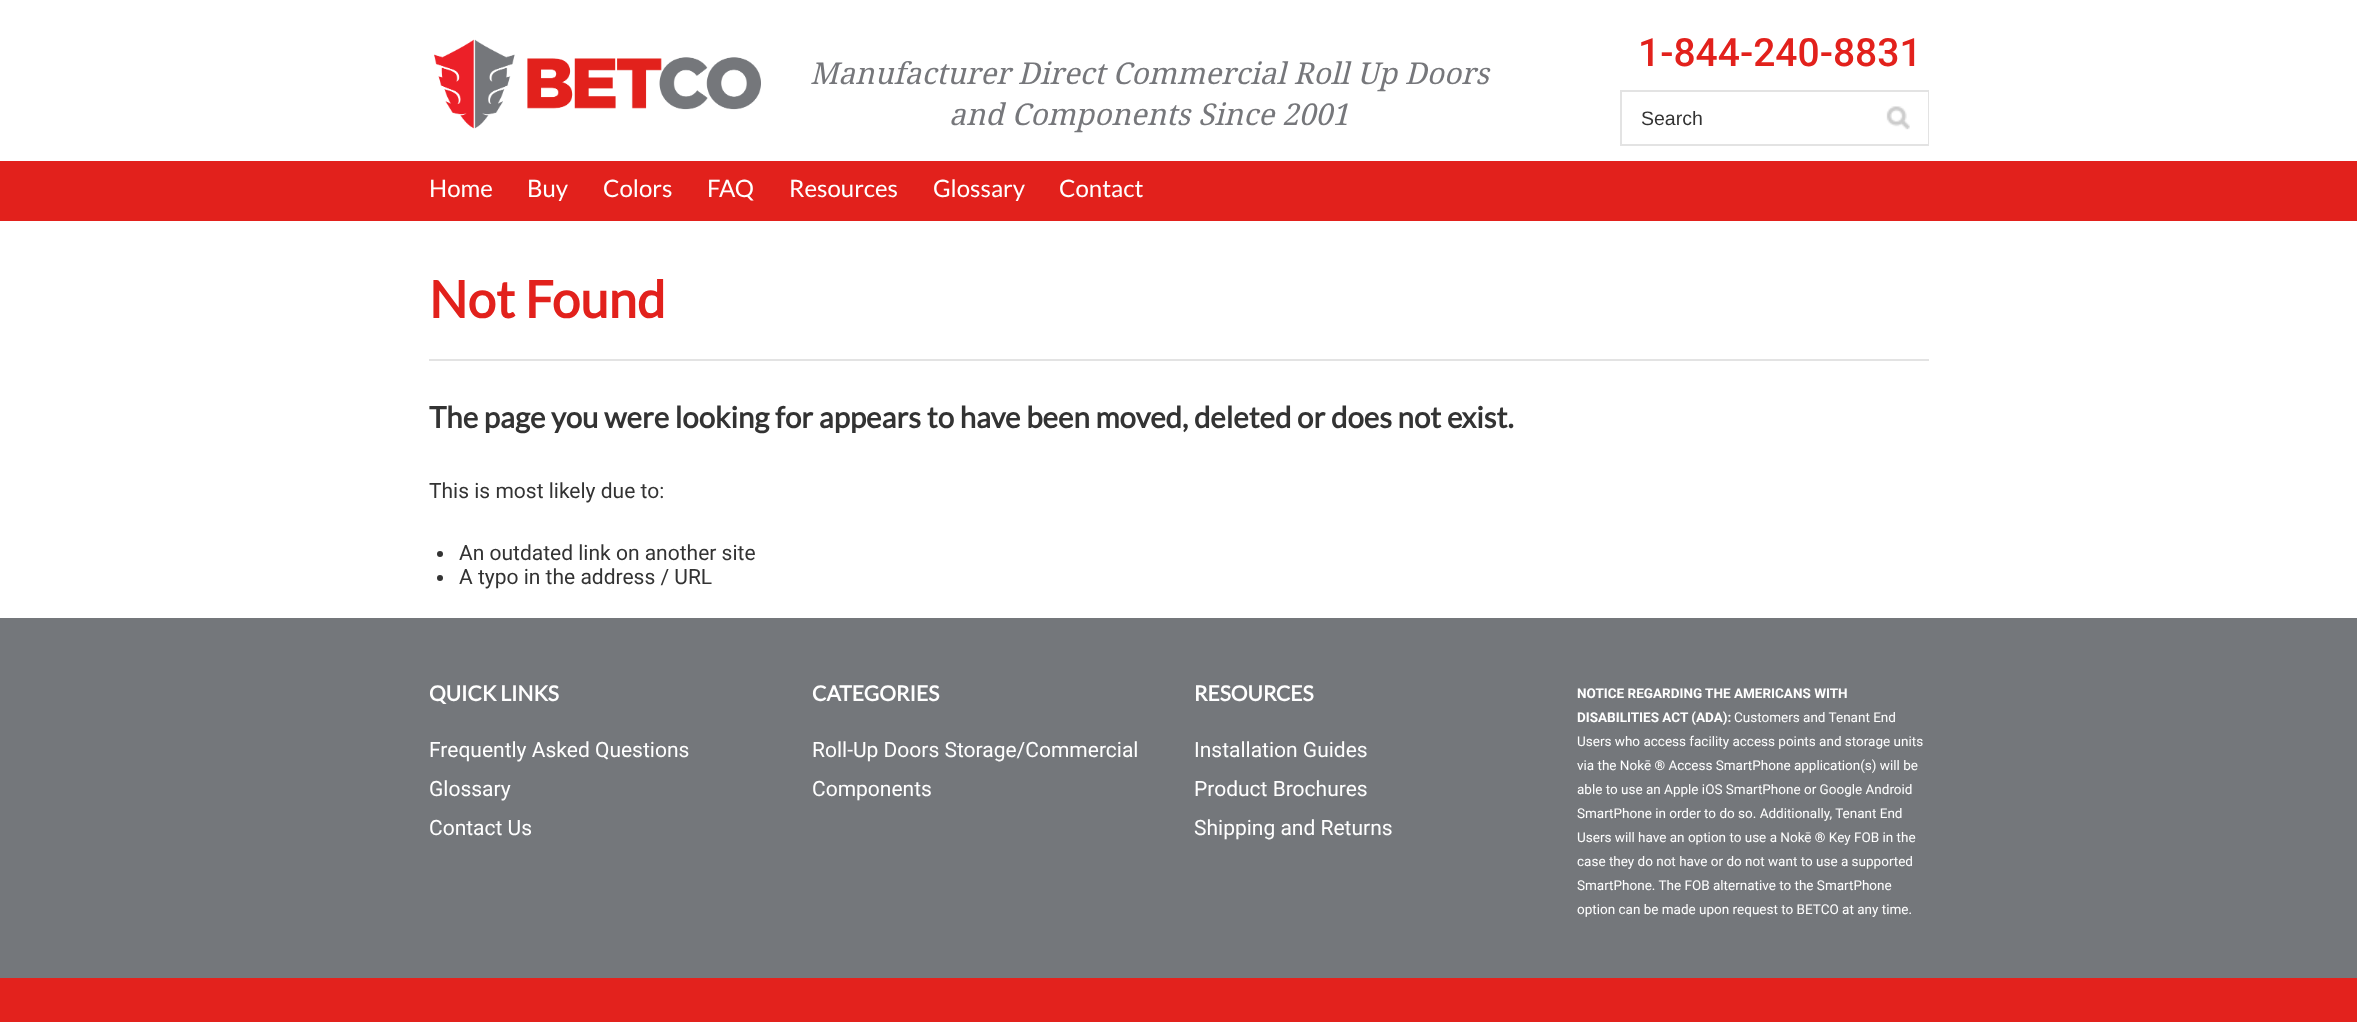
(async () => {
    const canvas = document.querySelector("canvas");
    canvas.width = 2357;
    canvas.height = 1022;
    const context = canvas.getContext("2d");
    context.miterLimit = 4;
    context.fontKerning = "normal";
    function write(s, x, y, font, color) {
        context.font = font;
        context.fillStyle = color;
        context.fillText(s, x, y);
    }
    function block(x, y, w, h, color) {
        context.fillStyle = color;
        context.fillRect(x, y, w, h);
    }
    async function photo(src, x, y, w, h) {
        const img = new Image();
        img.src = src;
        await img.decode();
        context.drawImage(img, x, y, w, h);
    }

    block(0, 0, 2357, 1022, "rgb(255, 255, 255)");
    await photo("media/1.png", 434, 39, 327, 90);
    write("Manufacturer Direct Commercial Roll Up Doors", 810, 84, "italic 30px Noto Serif", "rgb(118, 119, 123)");
    write("and Components Since 2001", 949, 125, "italic 30px Noto Serif", "rgb(118, 119, 123)");
    write("1-844-240-8831", 1638, 66, "500 39px Roboto", "rgb(226, 33, 28)");
    context.strokeStyle = "rgb(227, 227, 227)";
    context.lineWidth = 2;
    context.strokeRect(1621, 91, 307, 54);
    write("Search", 1641, 125, "19.5px Liberation Sans", "rgb(51, 51, 51)");
    block(1927, 92, 1, 52, "rgb(255, 255, 255)");
    await photo("media/2.png", 1886, 106, 24, 24);
    block(0, 161, 2357, 60, "rgb(226, 33, 28)");
    write("Home", 429, 197, "24px Lato", "rgb(255, 255, 255)");
    write("Buy", 527, 197, "24px Lato", "rgb(255, 255, 255)");
    write("Colors", 603, 197, "24px Lato", "rgb(255, 255, 255)");
    write("FAQ", 707, 197, "24px Lato", "rgb(255, 255, 255)");
    write("Resources", 789, 197, "24px Lato", "rgb(255, 255, 255)");
    write("Glossary", 933, 197, "24px Lato", "rgb(255, 255, 255)");
    write("Contact", 1059, 197, "24px Lato", "rgb(255, 255, 255)");
    block(429, 359, 1500, 2, "rgb(227, 227, 227)");
    write("Not Found", 429, 318, "bold 51px Lato", "rgb(226, 33, 28)");
    write("The page you were looking for appears to have been moved, deleted or does not exist.", 429, 428, "bold 29.4px Lato", "rgb(51, 51, 51)");
    write("This is most likely due to:", 429, 498, "21px Roboto", "rgb(51, 51, 51)");
    context.beginPath();
    context.arc(440, 554, 3, 0, Math.PI * 2);
    context.fill();
    write("An outdated link on another site", 459, 560, "21px Roboto", "rgb(51, 51, 51)");
    context.beginPath();
    context.arc(440, 578, 3, 0, Math.PI * 2);
    context.fill();
    write("A typo in the address / URL", 459, 584, "21px Roboto", "rgb(51, 51, 51)");
    block(0, 618, 2357, 360, "rgb(116, 119, 123)");
    write("QUICK LINKS", 429, 701, "bold 21px Lato", "rgb(255, 255, 255)");
    write("Frequently Asked Questions", 429, 757, "21px Roboto", "rgb(255, 255, 255)");
    write("Glossary", 429, 796, "21px Roboto", "rgb(255, 255, 255)");
    write("Contact Us", 429, 835, "21px Roboto", "rgb(255, 255, 255)");
    write("CATEGORIES", 812, 701, "bold 21px Lato", "rgb(255, 255, 255)");
    write("Roll-Up Doors Storage/Commercial", 812, 757, "21px Roboto", "rgb(255, 255, 255)");
    write("Components", 812, 796, "21px Roboto", "rgb(255, 255, 255)");
    write("RESOURCES", 1194, 701, "bold 21px Lato", "rgb(255, 255, 255)");
    write("Installation Guides", 1194, 757, "21px Roboto", "rgb(255, 255, 255)");
    write("Product Brochures", 1194, 796, "21px Roboto", "rgb(255, 255, 255)");
    write("Shipping and Returns", 1194, 835, "21px Roboto", "rgb(255, 255, 255)");
    write("NOTICE REGARDING THE AMERICANS WITH", 1577, 698, "bold 13.5px Roboto", "rgb(255, 255, 255)");
    write("DISABILITIES ACT (ADA):", 1577, 722, "bold 13.5px Roboto", "rgb(255, 255, 255)");
    write("Customers and Tenant End", 1734, 722, "13.5px Roboto", "rgb(255, 255, 255)");
    write("Users who access facility access points and storage units", 1577, 746, "13.5px Roboto", "rgb(255, 255, 255)");
    write("via the Nokē ® Access SmartPhone application(s) will be", 1577, 770, "13.5px Roboto", "rgb(255, 255, 255)");
    write("able to use an Apple iOS SmartPhone or Google Android", 1577, 794, "13.5px Roboto", "rgb(255, 255, 255)");
    write("SmartPhone in order to do so. Additionally, Tenant End", 1577, 818, "13.5px Roboto", "rgb(255, 255, 255)");
    write("Users will have an option to use a Nokē ® Key FOB in the", 1577, 842, "13.5px Roboto", "rgb(255, 255, 255)");
    write("case they do not have or do not want to use a supported", 1577, 866, "13.5px Roboto", "rgb(255, 255, 255)");
    write("SmartPhone. The FOB alternative to the SmartPhone", 1577, 890, "13.5px Roboto", "rgb(255, 255, 255)");
    write("option can be made upon request to BETCO at any time.", 1577, 914, "13.5px Roboto", "rgb(255, 255, 255)");
    block(0, 978, 2357, 44, "rgb(227, 34, 29)");
})();
